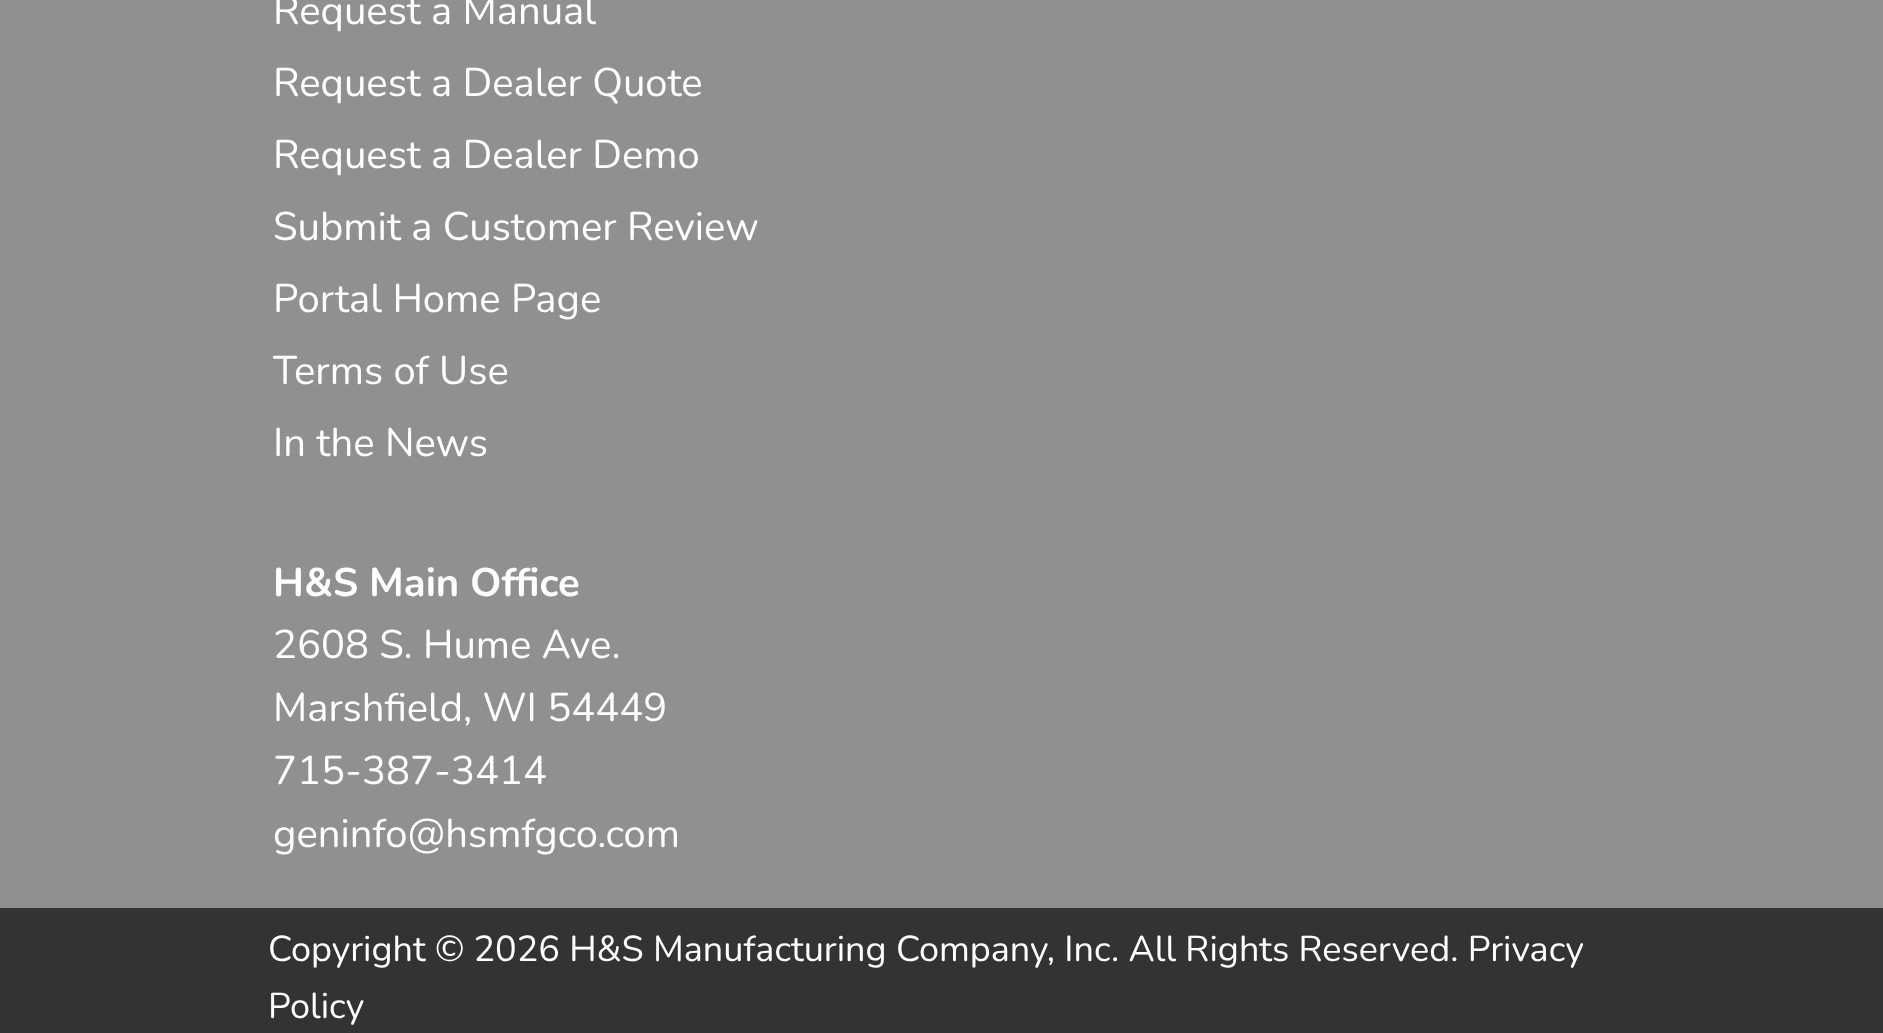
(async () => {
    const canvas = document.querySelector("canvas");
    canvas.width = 1883;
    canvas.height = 1033;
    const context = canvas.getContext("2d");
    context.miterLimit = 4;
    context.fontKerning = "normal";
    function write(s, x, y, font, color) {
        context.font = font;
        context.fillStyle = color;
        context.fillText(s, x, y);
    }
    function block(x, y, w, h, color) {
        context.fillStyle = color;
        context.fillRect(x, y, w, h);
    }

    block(0, 0, 1883, 1033, "rgb(51, 51, 51)");
    block(0, 0, 1883, 908, "rgb(144, 144, 144)");
    write("Request a Manual", 273, 24, "40px Nunito", "rgb(255, 255, 255)");
    write("Request a Dealer Quote", 273, 96, "40px Nunito", "rgb(255, 255, 255)");
    write("Request a Dealer Demo", 273, 168, "40px Nunito", "rgb(255, 255, 255)");
    write("Submit a Customer Review", 273, 240, "40px Nunito", "rgb(255, 255, 255)");
    write("Portal Home Page", 273, 312, "40px Nunito", "rgb(255, 255, 255)");
    write("Terms of Use", 273, 384, "40px Nunito", "rgb(255, 255, 255)");
    write("In the News", 273, 456, "40px Nunito", "rgb(255, 255, 255)");
    write("H&S Main Office", 273, 596, "bold 40px Nunito", "rgb(255, 255, 255)");
    write("2608 S. Hume Ave.", 273, 658, "40px Nunito", "rgb(255, 255, 255)");
    write("Marshfield, WI 54449", 273, 721, "40px Nunito", "rgb(255, 255, 255)");
    write("715-387-3414", 273, 784, "40px Nunito", "rgb(255, 255, 255)");
    write("geninfo@hsmfgco.com", 273, 847, "40px Nunito", "rgb(255, 255, 255)");
    write("Copyright © 2026 H&S Manufacturing Company, Inc. All Rights Reserved. Privacy", 268, 961, "36px Nunito", "rgb(255, 255, 255)");
    write("Policy", 268, 1018, "36px Nunito", "rgb(255, 255, 255)");
})();
